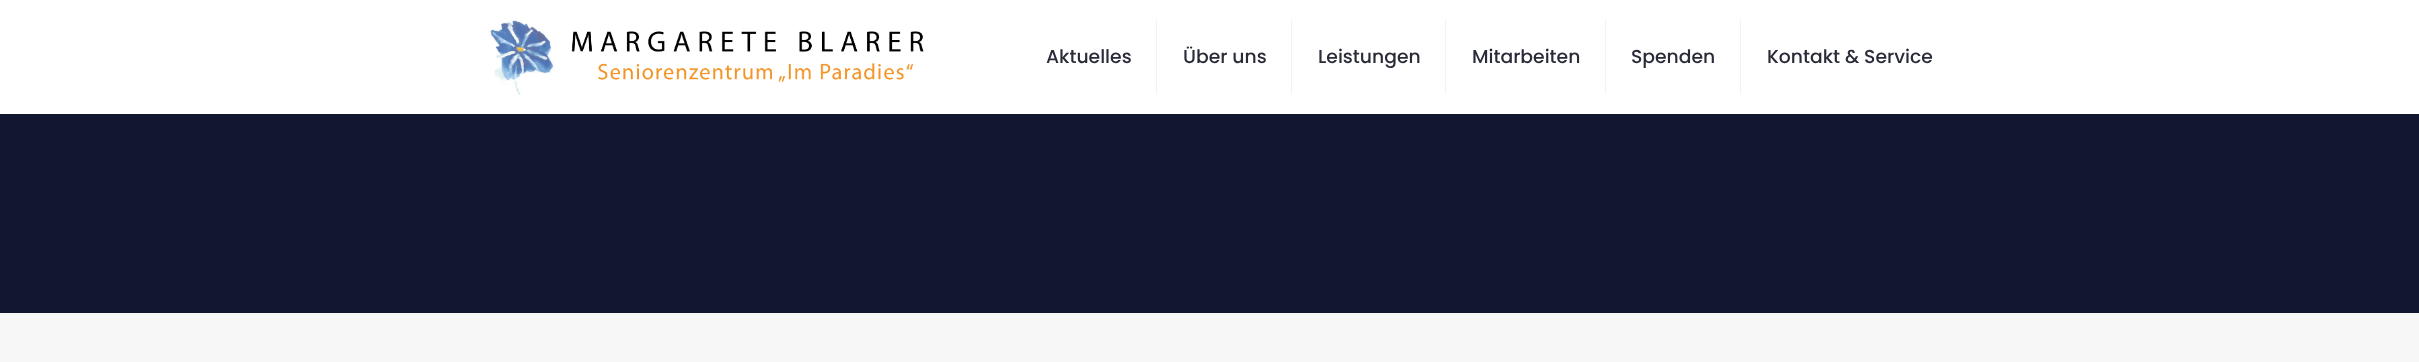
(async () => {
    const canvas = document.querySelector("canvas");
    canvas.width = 2419;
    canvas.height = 362;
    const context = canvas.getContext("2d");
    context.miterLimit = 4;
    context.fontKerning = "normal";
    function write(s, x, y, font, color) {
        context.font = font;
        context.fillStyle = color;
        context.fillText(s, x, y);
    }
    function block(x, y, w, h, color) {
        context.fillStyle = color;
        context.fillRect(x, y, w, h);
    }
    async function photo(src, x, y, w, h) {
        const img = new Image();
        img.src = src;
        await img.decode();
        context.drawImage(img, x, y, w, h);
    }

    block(0, 0, 2419, 362, "rgb(19, 22, 47)");
    block(0, 0, 2419, 114, "rgb(255, 255, 255)");
    await photo("media/1.png", 488, 20, 436, 75);
    block(1156, 19, 1, 75, "rgb(242, 242, 242)");
    write("Aktuelles", 1046, 63, "500 18.75px Poppins", "rgb(42, 43, 57)");
    block(1291, 19, 1, 75, "rgb(242, 242, 242)");
    write("Über uns", 1183, 63, "500 18.75px Poppins", "rgb(42, 43, 57)");
    block(1445, 19, 1, 75, "rgb(242, 242, 242)");
    write("Leistungen", 1318, 63, "500 18.75px Poppins", "rgb(42, 43, 57)");
    block(1605, 19, 1, 75, "rgb(242, 242, 242)");
    write("Mitarbeiten", 1472, 63, "500 18.75px Poppins", "rgb(42, 43, 57)");
    block(1740, 19, 1, 75, "rgb(242, 242, 242)");
    write("Spenden", 1631, 63, "500 18.75px Poppins", "rgb(42, 43, 57)");
    write("Kontakt & Service", 1767, 63, "500 18.75px Poppins", "rgb(42, 43, 57)");
    block(0, 313, 2419, 49, "rgb(247, 247, 247)");
})();
